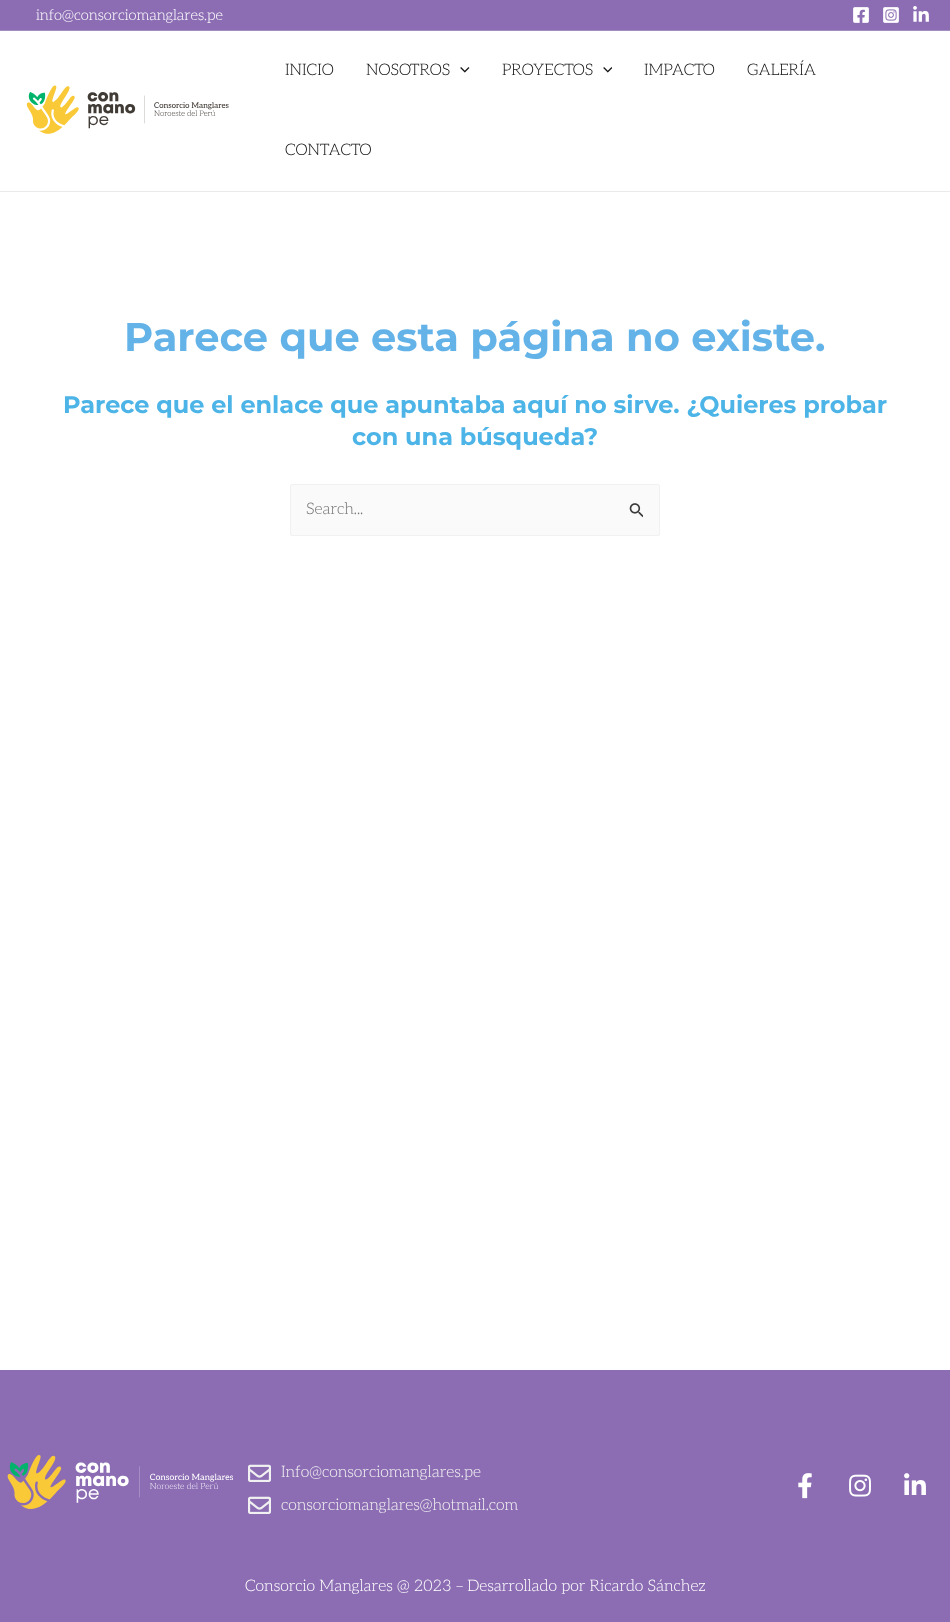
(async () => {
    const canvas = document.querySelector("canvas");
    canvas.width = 950;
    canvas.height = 1622;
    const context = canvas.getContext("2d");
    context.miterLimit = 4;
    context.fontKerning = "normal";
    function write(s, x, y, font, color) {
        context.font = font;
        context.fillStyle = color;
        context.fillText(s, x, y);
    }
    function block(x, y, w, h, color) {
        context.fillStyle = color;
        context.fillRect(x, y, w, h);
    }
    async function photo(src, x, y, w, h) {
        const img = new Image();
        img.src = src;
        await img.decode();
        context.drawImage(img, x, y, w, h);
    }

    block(0, 0, 950, 1622, "rgb(255, 255, 255)");
    block(0, 0, 950, 30, "rgb(140, 109, 180)");
    block(0, 30, 950, 1, "rgb(164, 141, 194)");
    write("info@consorciomanglares.pe", 36, 20, "300 15px Aleo", "rgb(255, 255, 255)");
    await photo("media/1.png", 853, 7, 16, 16);
    await photo("media/2.png", 883, 7, 16, 16);
    await photo("media/3.png", 913, 6, 16, 16);
    block(0, 191, 950, 1, "rgb(234, 234, 234)");
    await photo("media/4.png", 26, 85, 203, 49);
    write("INICIO", 285, 75, "300 16px Aleo", "rgb(17, 17, 17)");
    write("NOSOTROS", 366, 75, "300 16px Aleo", "rgb(17, 17, 17)");
    await photo("media/5.png", 460, 67, 10, 6);
    write("PROYECTOS", 502, 75, "300 16px Aleo", "rgb(17, 17, 17)");
    await photo("media/6.png", 603, 67, 9, 6);
    write("IMPACTO", 644, 75, "300 16px Aleo", "rgb(17, 17, 17)");
    write("GALERÍA", 747, 75, "300 16px Aleo", "rgb(17, 17, 17)");
    write("CONTACTO", 285, 155, "300 16px Aleo", "rgb(17, 17, 17)");
    write("Parece que esta página no existe.", 124, 351, "100 40px Montserrat", "rgb(100, 179, 232)");
    write("Parece que el enlace que apuntaba aquí no sirve. ¿Quieres probar", 63, 413, "100 24px Montserrat", "rgb(76, 180, 231)");
    write("con una búsqueda?", 352, 445, "100 24px Montserrat", "rgb(76, 180, 231)");
    context.fillStyle = "rgb(250, 250, 250)";
    context.beginPath();
    context.roundRect(290.5, 484.5, 369, 51, 1.5);
    context.fill();
    context.strokeStyle = "rgb(241, 241, 241)";
    context.stroke();
    write("Search...", 306, 514, "300 16px Aleo", "rgb(117, 117, 117)");
    await photo("media/7.png", 629, 503, 14, 15);
    block(0, 1370, 950, 252, "rgb(140, 109, 180)");
    await photo("media/8.png", 7, 1455, 226, 54);
    await photo("media/9.png", 248, 1464, 23, 18);
    write("Info@consorciomanglares.pe", 281, 1477, "300 16px Aleo", "rgb(241, 241, 241)");
    await photo("media/9.png", 248, 1496, 23, 18);
    write("consorciomanglares@hotmail.com", 281, 1510, "300 16px Aleo", "rgb(241, 241, 241)");
    await photo("media/10.png", 798, 1473, 14, 26);
    await photo("media/11.png", 849, 1474, 22, 23);
    await photo("media/12.png", 904, 1473, 22, 22);
    write("Consorcio Manglares @ 2023 – Desarrollado por Ricardo Sánchez", 245, 1591, "300 16px Aleo", "rgb(255, 255, 255)");
})();
